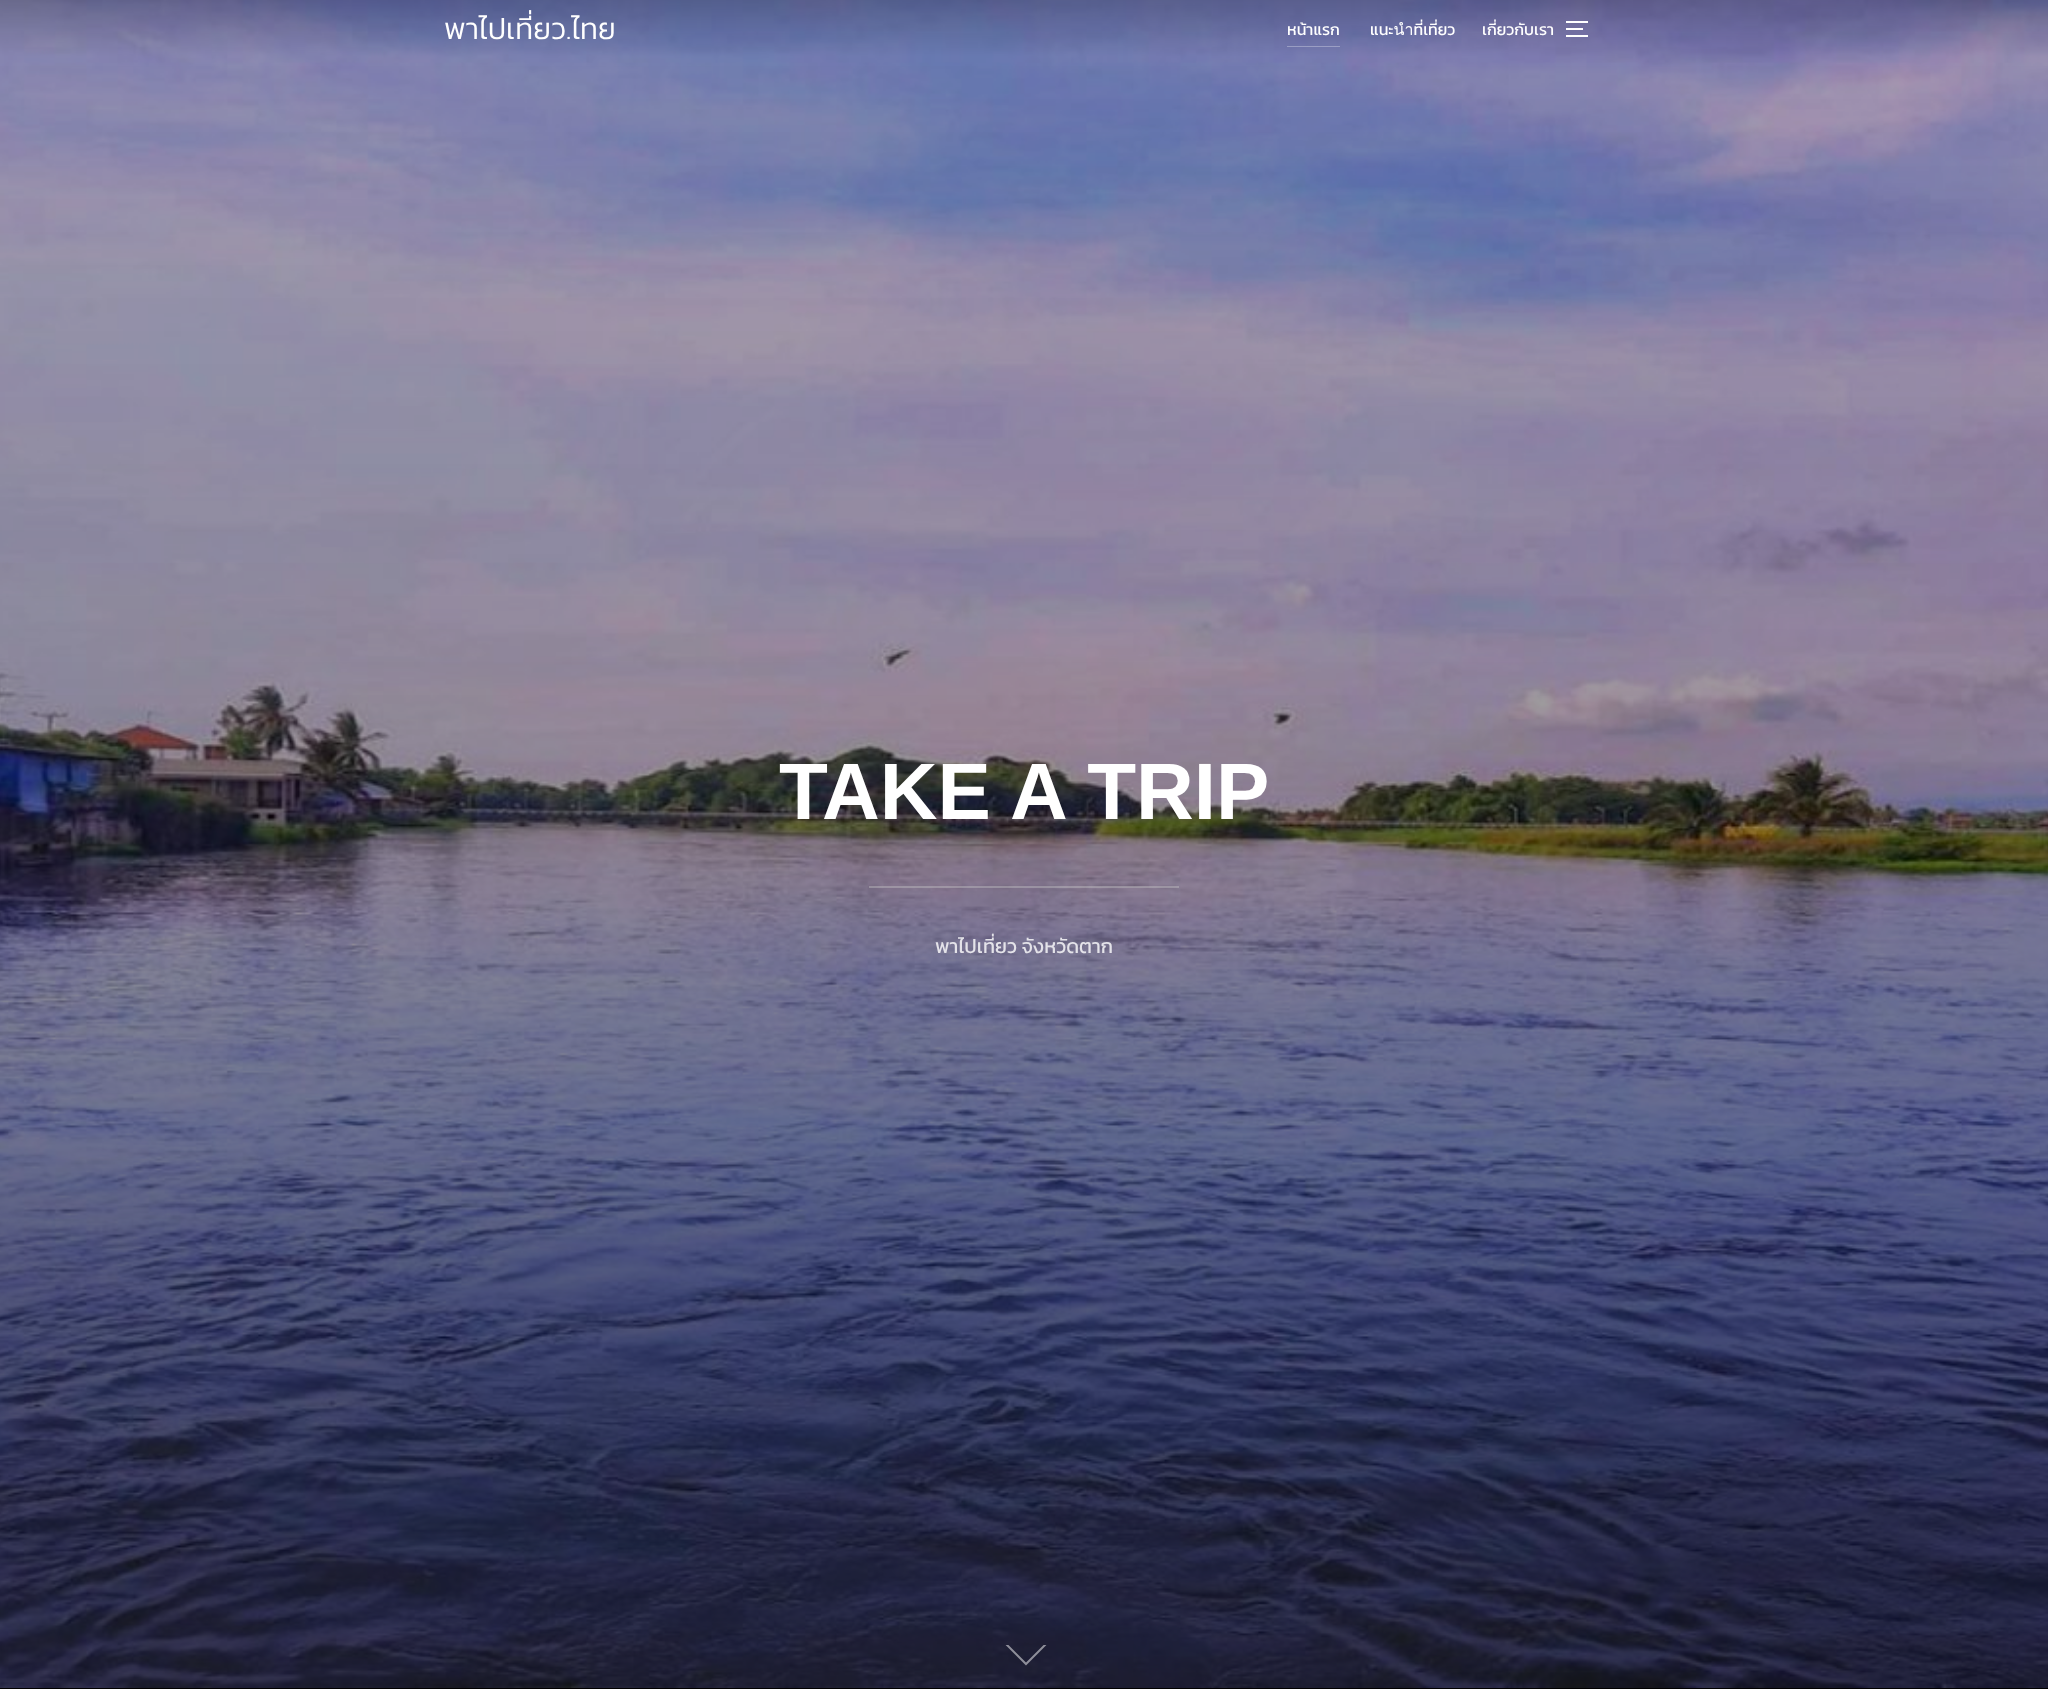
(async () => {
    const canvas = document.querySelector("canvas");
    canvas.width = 2048;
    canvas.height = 1689;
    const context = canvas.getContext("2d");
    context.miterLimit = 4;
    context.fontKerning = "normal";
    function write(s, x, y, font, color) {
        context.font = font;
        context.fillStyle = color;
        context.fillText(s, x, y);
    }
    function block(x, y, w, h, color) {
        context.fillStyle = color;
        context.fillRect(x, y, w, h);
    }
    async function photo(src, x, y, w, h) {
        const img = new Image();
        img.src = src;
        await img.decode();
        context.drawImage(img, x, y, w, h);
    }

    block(0, 0, 2048, 1689, "rgb(0, 0, 0)");
    await photo("media/1.png", 0, 0, 2048, 1688);
    write("พาไปเที่ยว.ไทย", 444, 39, "300 30px Kanit", "rgb(255, 255, 255)");
    block(1287, 46, 53, 1, "rgba(255, 255, 255, 0.3)");
    write("หน้าแรก", 1287, 35, "16px Kanit", "rgb(255, 255, 255)");
    write("แนะนำที่เที่ยว", 1370, 35, "16px Kanit", "rgb(255, 255, 255)");
    write("เกี่ยวกับเรา", 1482, 35, "16px Kanit", "rgb(255, 255, 255)");
    block(1566, 21, 22, 2, "rgb(255, 255, 255)");
    block(1566, 28, 17, 2, "rgb(255, 255, 255)");
    block(1566, 35, 22, 2, "rgb(255, 255, 255)");
    write("TAKE A TRIP", 779, 819, "bold 80px Liberation Sans", "rgb(255, 255, 255)");
    block(869, 886, 310, 2, "rgba(201, 201, 201, 0.4)");
    write("พาไปเที่ยว จังหวัดตาก", 935, 953, "20px Kanit", "rgb(228, 227, 233)");
    context.save();
    context.beginPath();
    context.rect(996, 1645, 56, 24);
    context.clip();
    context.beginPath();
    context.moveTo(1026, 1624);
    context.lineTo(1046, 1644);
    context.lineTo(1026, 1664);
    context.lineTo(1006, 1644);
    context.closePath();
    context.strokeStyle = "rgba(255, 255, 255, 0.5)";
    context.lineWidth = 2;
    context.stroke();
    context.restore();
})();
